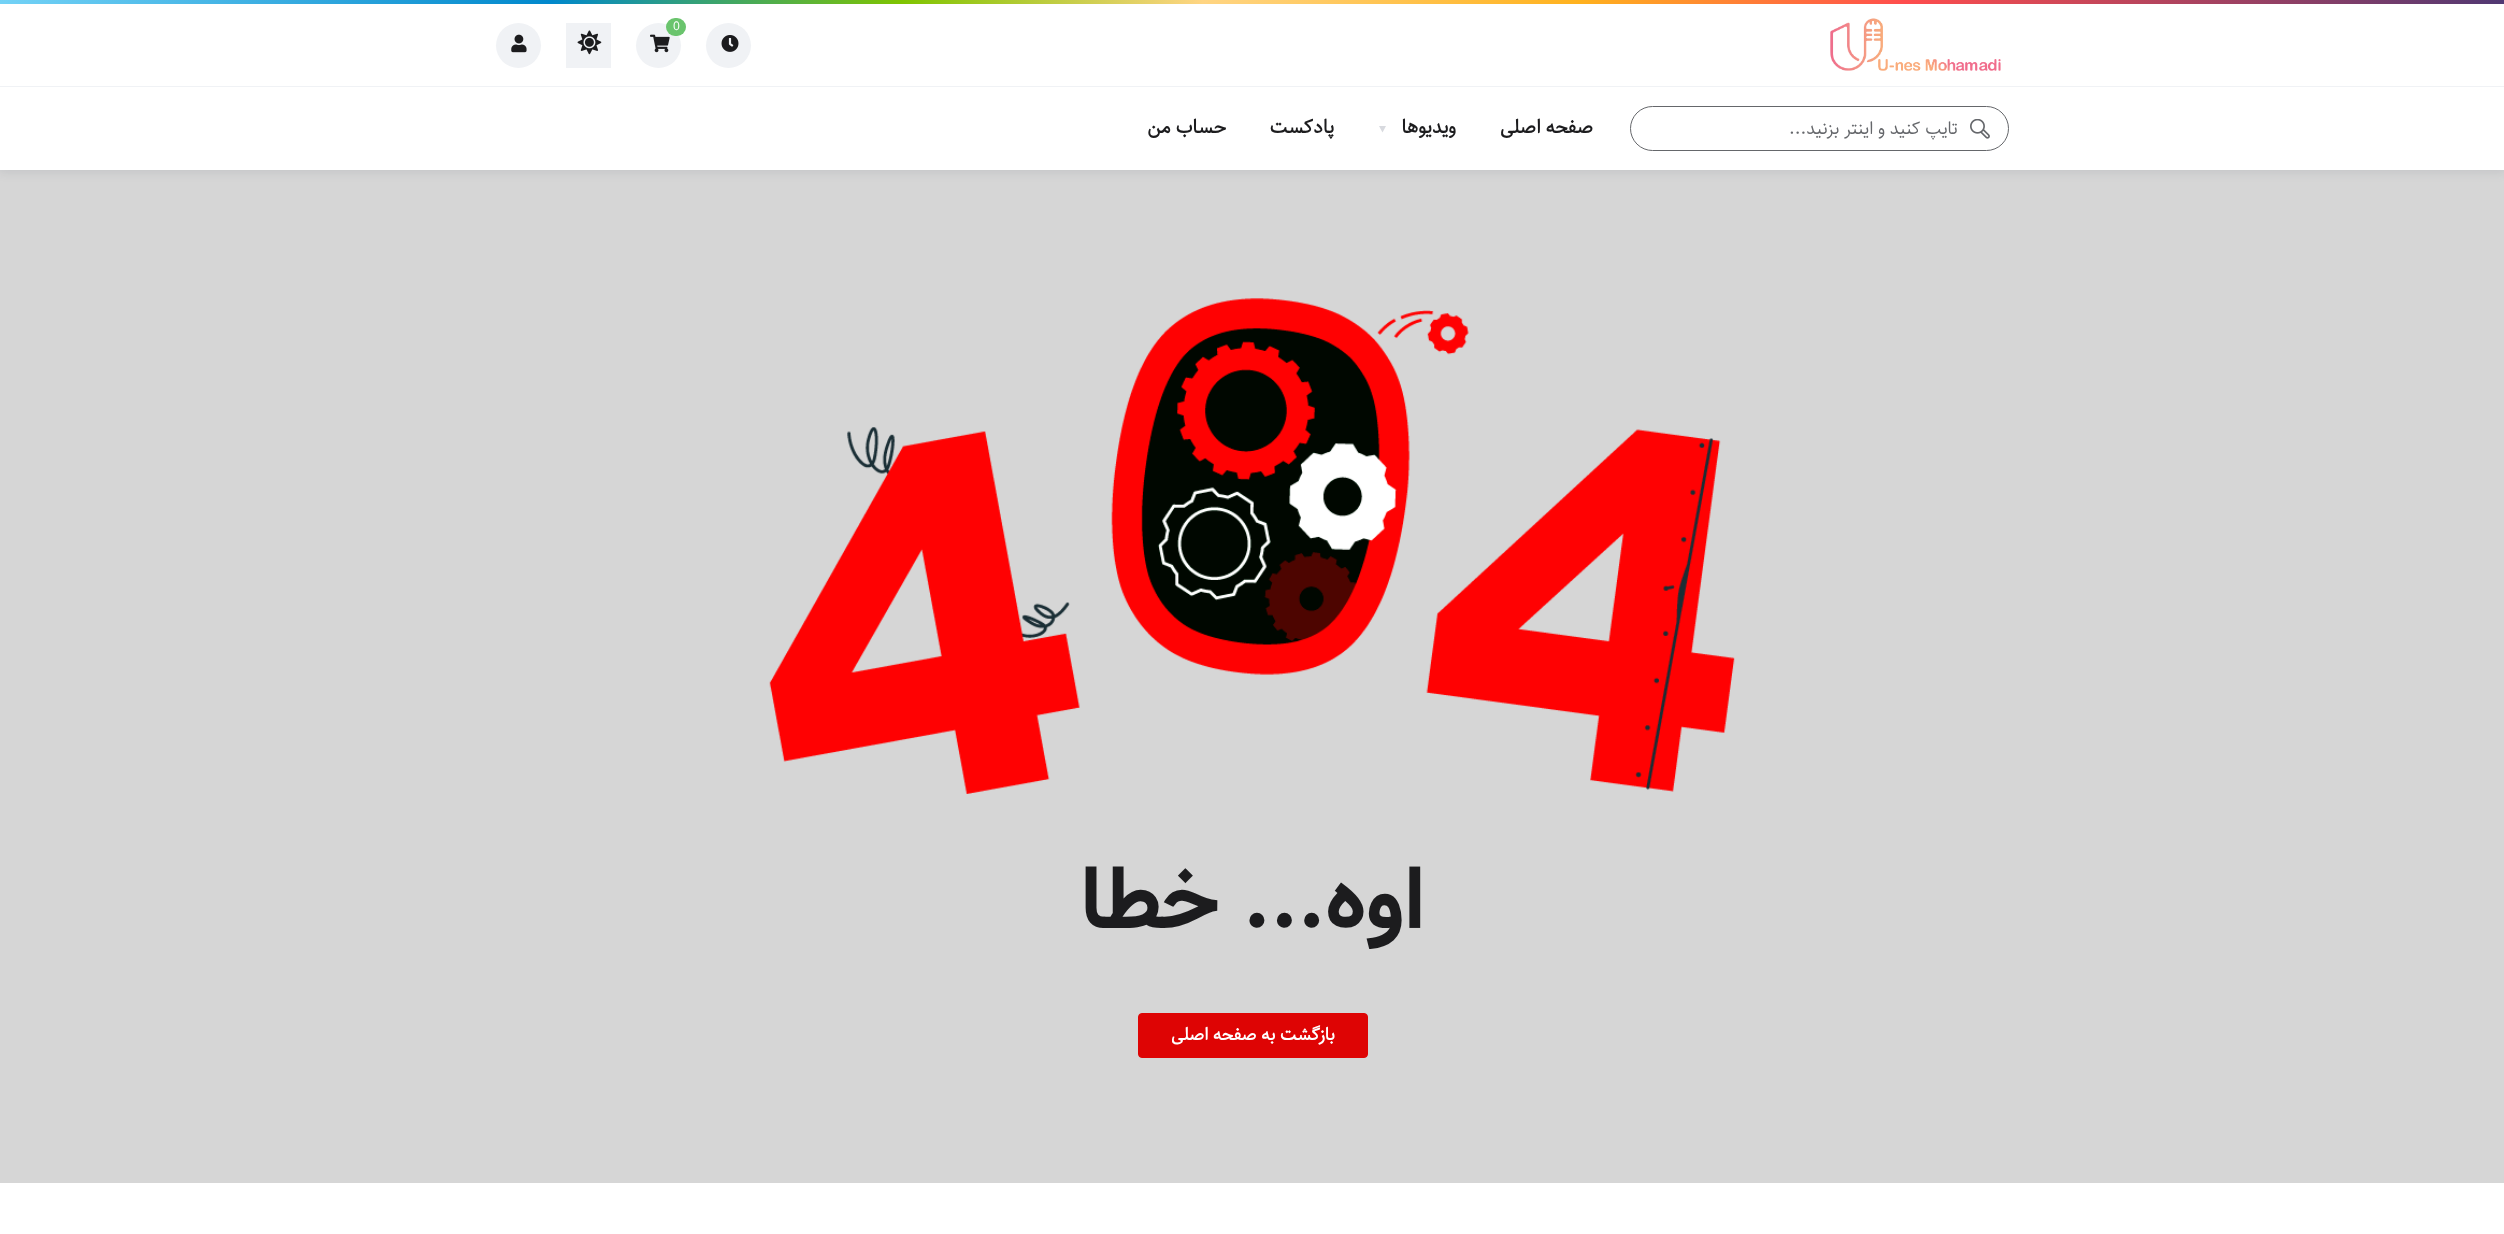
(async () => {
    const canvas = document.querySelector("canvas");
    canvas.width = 2504;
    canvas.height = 1234;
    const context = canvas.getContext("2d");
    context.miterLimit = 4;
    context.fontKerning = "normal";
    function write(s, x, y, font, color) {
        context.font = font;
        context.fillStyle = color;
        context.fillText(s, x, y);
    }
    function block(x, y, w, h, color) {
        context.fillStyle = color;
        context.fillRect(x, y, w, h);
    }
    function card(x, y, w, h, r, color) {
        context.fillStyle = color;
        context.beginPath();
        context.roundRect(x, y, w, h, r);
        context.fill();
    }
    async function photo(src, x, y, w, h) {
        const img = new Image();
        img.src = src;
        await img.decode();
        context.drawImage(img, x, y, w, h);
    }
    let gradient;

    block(0, 0, 2504, 1234, "rgb(214, 214, 214)");
    gradient = context.createLinearGradient(0, 1.9, 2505, 1.9);
    gradient.addColorStop(0, "rgb(115, 210, 246)");
    gradient.addColorStop(0.22, "rgb(0, 136, 204)");
    gradient.addColorStop(0.36, "rgb(127, 196, 0)");
    gradient.addColorStop(0.48, "rgb(255, 213, 131)");
    gradient.addColorStop(0.63, "rgb(255, 178, 30)");
    gradient.addColorStop(0.76, "rgb(255, 77, 77)");
    gradient.addColorStop(1, "rgb(80, 56, 115)");
    context.fillStyle = gradient;
    context.fillRect(0, 0, 2504, 4);
    context.fillStyle = "rgba(28, 45, 66, 0.09)";
    context.filter = "blur(5px)";
    context.beginPath();
    context.rect(-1, 88, 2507, 85);
    context.fill();
    context.filter = "none";
    block(0, 4, 2504, 166, "rgb(255, 255, 255)");
    block(0, 86, 2504, 1, "rgb(240, 242, 245)");
    await photo("media/1.png", 1830, 18, 171, 53);
    context.beginPath();
    context.arc(728.5, 45.5, 22.5, 0, Math.PI * 2);
    context.fill();
    await photo("media/2.png", 721, 35, 18, 17);
    context.beginPath();
    context.arc(658.5, 45.5, 22.5, 0, Math.PI * 2);
    context.fill();
    await photo("media/3.png", 650, 34, 20, 19);
    card(666, 18, 20, 18, 9, "rgb(106, 196, 109)");
    write("0", 673, 30, "12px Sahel", "rgb(255, 255, 255)");
    block(566, 23, 45, 45, "rgb(240, 242, 245)");
    await photo("media/4.png", 577, 30, 25, 25);
    context.beginPath();
    context.arc(518.5, 45.5, 22.5, 0, Math.PI * 2);
    context.fill();
    await photo("media/5.png", 511, 34, 16, 19);
    await photo("media/6.png", 1970, 119, 20, 20);
    context.beginPath();
    context.roundRect(1630.5, 106.5, 378, 44, 22);
    context.strokeStyle = "rgb(101, 103, 107)";
    context.stroke();
    context.direction = "rtl";
    write("تایپ کنید و اینتر بزنید...", 1958, 134, "17.5px Sahel", "rgb(101, 103, 107)");
    write("صفحه اصلی", 1593, 133, "bold 19px Sahel", "rgb(28, 28, 30)");
    write("ویدیوها", 1456, 133, "bold 19px Sahel", "rgb(28, 28, 30)");
    context.fillStyle = "rgb(216, 218, 223)";
    context.beginPath();
    context.moveTo(1379, 126);
    context.lineTo(1386, 126);
    context.lineTo(1382.5, 132.5);
    context.closePath();
    context.fill();
    write("پادکست", 1334, 133, "bold 19px Sahel", "rgb(28, 28, 30)");
    write("حساب من", 1226, 133, "bold 19px Sahel", "rgb(28, 28, 30)");
    await photo("media/7.png", 769, 298, 966, 496);
    write("اوه... خطا", 1425, 928, "bold 87.5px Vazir", "rgb(28, 28, 30)");
    context.fillStyle = "rgb(222, 4, 4)";
    context.beginPath();
    context.roundRect(1138.5, 1013.5, 229, 44, 3.5);
    context.fill();
    context.strokeStyle = "rgb(222, 4, 4)";
    context.stroke();
    write("بازگشت به صفحه اصلی", 1335, 1040, "bold 17.5px Sahel", "rgb(255, 255, 255)");
    block(0, 1183, 2504, 51, "rgb(255, 255, 255)");
})();
